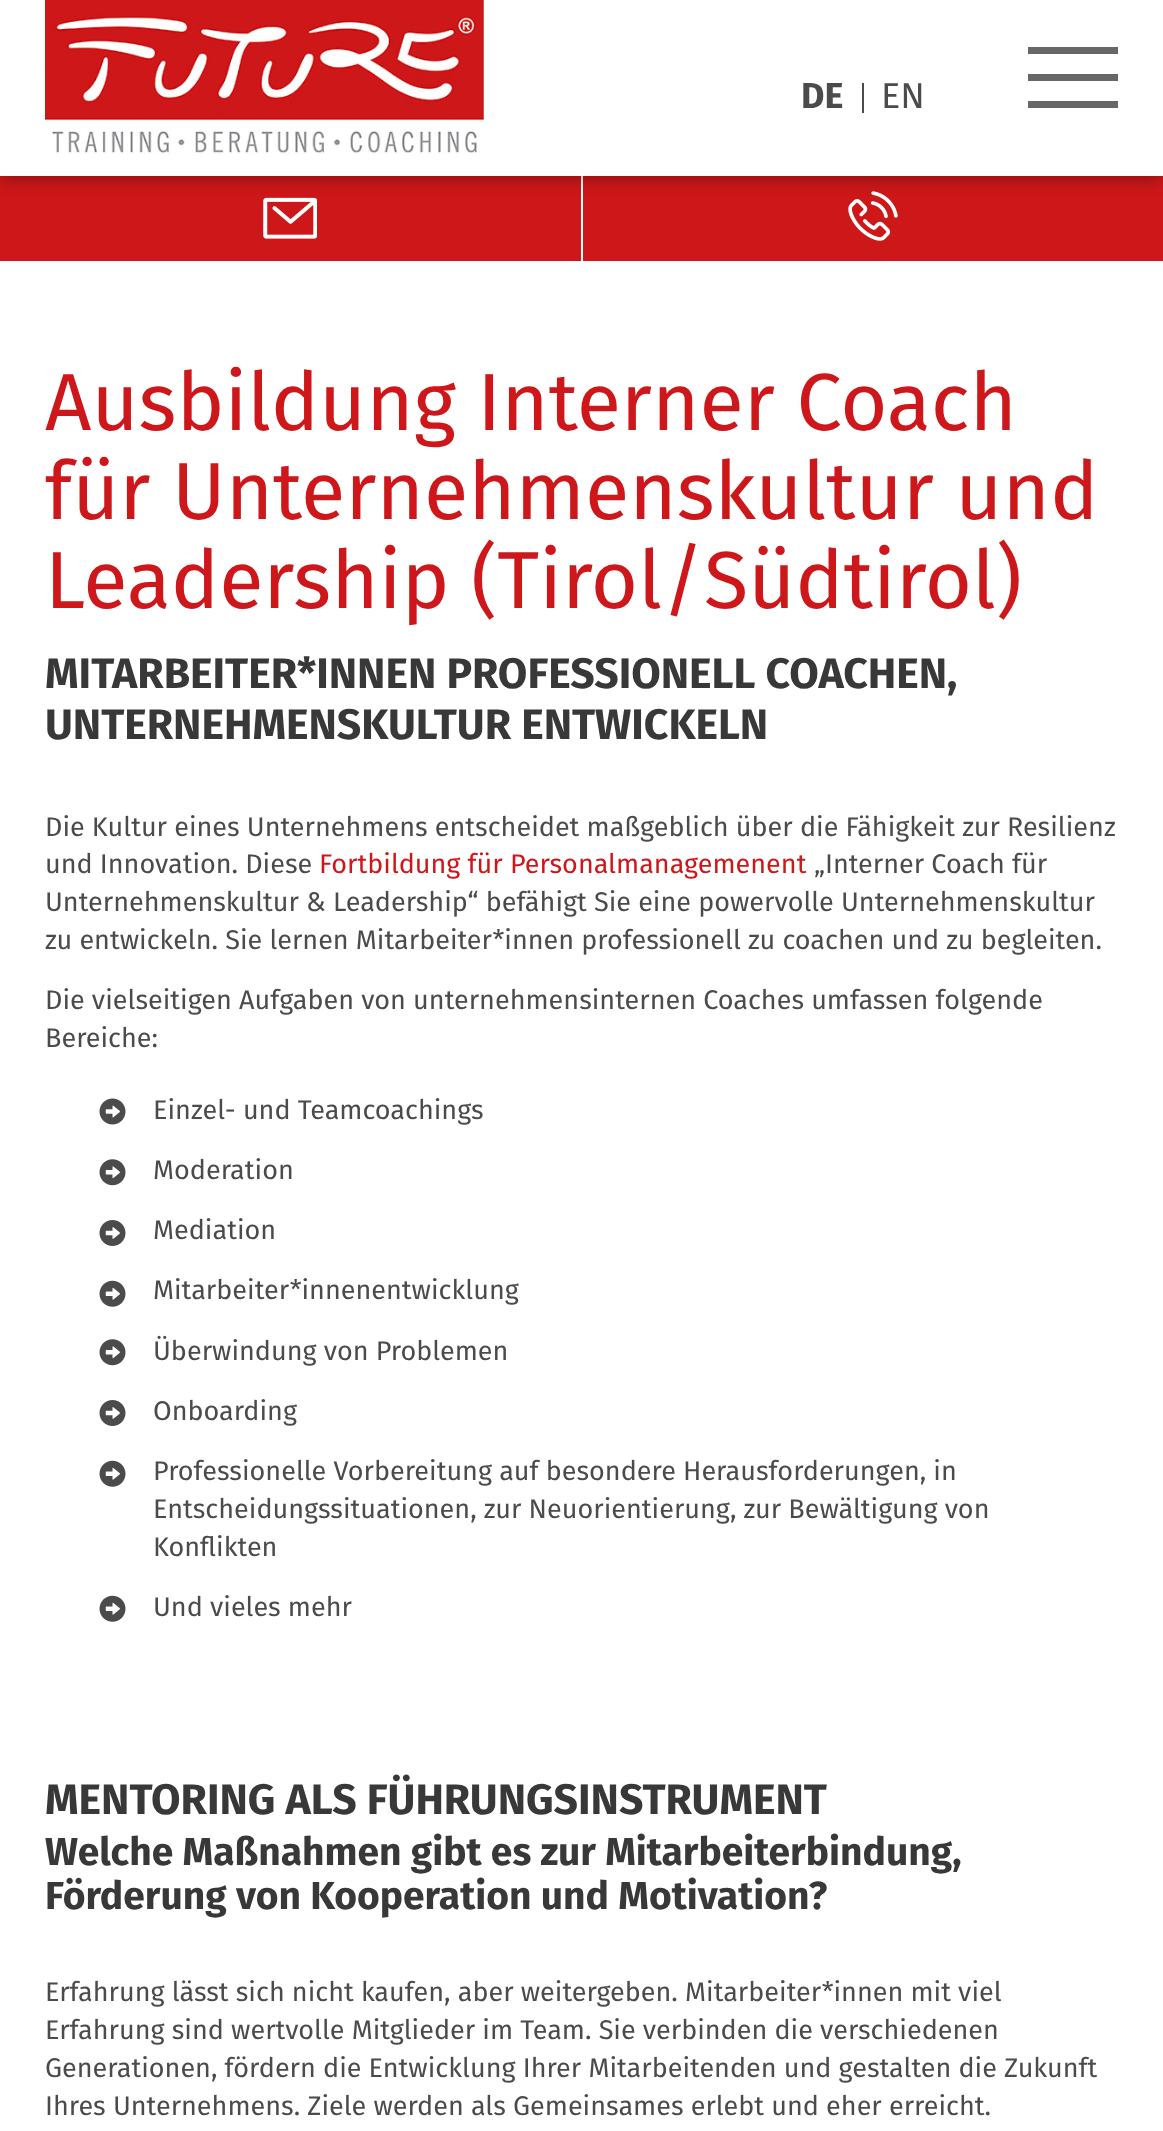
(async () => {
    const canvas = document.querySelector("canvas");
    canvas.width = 1163;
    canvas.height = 2131;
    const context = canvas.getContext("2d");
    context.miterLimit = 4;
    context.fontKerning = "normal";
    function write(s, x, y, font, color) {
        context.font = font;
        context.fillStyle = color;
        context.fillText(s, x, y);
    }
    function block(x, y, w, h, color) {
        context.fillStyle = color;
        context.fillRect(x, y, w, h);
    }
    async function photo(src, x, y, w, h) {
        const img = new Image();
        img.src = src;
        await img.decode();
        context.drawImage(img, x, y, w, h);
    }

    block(0, 0, 1163, 2131, "rgb(255, 255, 255)");
    block(0, 176, 581, 85, "rgb(206, 23, 25)");
    await photo("media/2.png", 263, 197, 54, 42);
    block(583, 176, 580, 85, "rgb(206, 23, 25)");
    await photo("media/3.png", 848, 191, 50, 50);
    context.fillStyle = "rgba(0, 0, 0, 0.3)";
    context.filter = "blur(8px)";
    context.beginPath();
    context.rect(2, 9, 1159, 171);
    context.fill();
    context.filter = "none";
    block(0, 0, 1163, 176, "rgb(255, 255, 255)");
    await photo("media/1.png", 45, 0, 439, 155);
    write("DE", 801, 108, "bold 36px Fira Sans", "rgb(75, 75, 75)");
    block(862, 83, 2, 30, "rgb(75, 75, 75)");
    write("EN", 881, 108, "36px Fira Sans", "rgb(75, 75, 75)");
    block(1028, 47, 90, 7, "rgb(103, 103, 103)");
    block(1028, 74, 90, 7, "rgb(103, 103, 103)");
    block(1028, 101, 90, 7, "rgb(103, 103, 103)");
    write("Ausbildung Interner Coach", 45, 430, "81px Fira Sans", "rgb(206, 23, 26)");
    write("für Unternehmenskultur und", 45, 519, "81px Fira Sans", "rgb(206, 23, 26)");
    write("Leadership (Tirol/Südtirol)", 45, 608, "81px Fira Sans", "rgb(206, 23, 26)");
    write("MITARBEITER*INNEN PROFESSIONELL COACHEN,", 45, 688, "bold 42.75px Fira Sans", "rgb(56, 56, 56)");
    write("UNTERNEHMENSKULTUR ENTWICKELN", 45, 739, "bold 42.75px Fira Sans", "rgb(56, 56, 56)");
    write("Die Kultur eines Unternehmens entscheidet maßgeblich über die Fähigkeit zur Resilienz", 45, 836, "27px Fira Sans", "rgb(75, 75, 75)");
    write("und Innovation. Diese", 45, 873, "27px Fira Sans", "rgb(75, 75, 75)");
    write("Fortbildung für Personalmanagemenent", 319, 873, "27px Fira Sans", "rgb(206, 23, 26)");
    write("„Interner Coach für", 814, 873, "27px Fira Sans", "rgb(75, 75, 75)");
    write("Unternehmenskultur & Leadership“ befähigt Sie eine powervolle Unternehmenskultur", 45, 911, "27px Fira Sans", "rgb(75, 75, 75)");
    write("zu entwickeln. Sie lernen Mitarbeiter*innen professionell zu coachen und zu begleiten.", 45, 949, "27px Fira Sans", "rgb(75, 75, 75)");
    write("Die vielseitigen Aufgaben von unternehmensinternen Coaches umfassen folgende", 45, 1009, "27px Fira Sans", "rgb(75, 75, 75)");
    write("Bereiche:", 45, 1047, "27px Fira Sans", "rgb(75, 75, 75)");
    await photo("media/4.png", 99, 1098, 27, 27);
    write("Einzel- und Teamcoachings", 153, 1119, "27px Fira Sans", "rgb(75, 75, 75)");
    await photo("media/5.png", 99, 1159, 27, 27);
    write("Moderation", 153, 1179, "27px Fira Sans", "rgb(75, 75, 75)");
    await photo("media/6.png", 99, 1220, 27, 26);
    write("Mediation", 153, 1239, "27px Fira Sans", "rgb(75, 75, 75)");
    await photo("media/7.png", 99, 1280, 27, 27);
    write("Mitarbeiter*innenentwicklung", 153, 1299, "27px Fira Sans", "rgb(75, 75, 75)");
    await photo("media/5.png", 99, 1339, 27, 27);
    write("Überwindung von Problemen", 153, 1360, "27px Fira Sans", "rgb(75, 75, 75)");
    await photo("media/6.png", 99, 1400, 27, 26);
    write("Onboarding", 153, 1420, "27px Fira Sans", "rgb(75, 75, 75)");
    await photo("media/7.png", 99, 1460, 27, 27);
    write("Professionelle Vorbereitung auf besondere Herausforderungen, in", 153, 1480, "27px Fira Sans", "rgb(75, 75, 75)");
    write("Entscheidungssituationen, zur Neuorientierung, zur Bewältigung von", 153, 1518, "27px Fira Sans", "rgb(75, 75, 75)");
    write("Konflikten", 153, 1556, "27px Fira Sans", "rgb(75, 75, 75)");
    await photo("media/7.png", 99, 1595, 27, 27);
    write("Und vieles mehr", 153, 1616, "27px Fira Sans", "rgb(75, 75, 75)");
    write("MENTORING ALS FÜHRUNGSINSTRUMENT", 45, 1814, "bold 42.75px Fira Sans", "rgb(56, 56, 56)");
    write("Welche Maßnahmen gibt es zur Mitarbeiterbindung,", 45, 1865, "bold 39px Fira Sans", "rgb(56, 56, 56)");
    write("Förderung von Kooperation und Motivation?", 45, 1909, "bold 39px Fira Sans", "rgb(56, 56, 56)");
    write("Erfahrung lässt sich nicht kaufen, aber weitergeben. Mitarbeiter*innen mit viel", 45, 2001, "27px Fira Sans", "rgb(75, 75, 75)");
    write("Erfahrung sind wertvolle Mitglieder im Team. Sie verbinden die verschiedenen", 45, 2039, "27px Fira Sans", "rgb(75, 75, 75)");
    write("Generationen, fördern die Entwicklung Ihrer Mitarbeitenden und gestalten die Zukunft", 45, 2077, "27px Fira Sans", "rgb(75, 75, 75)");
    write("Ihres Unternehmens. Ziele werden als Gemeinsames erlebt und eher erreicht.", 45, 2115, "27px Fira Sans", "rgb(75, 75, 75)");
})();
